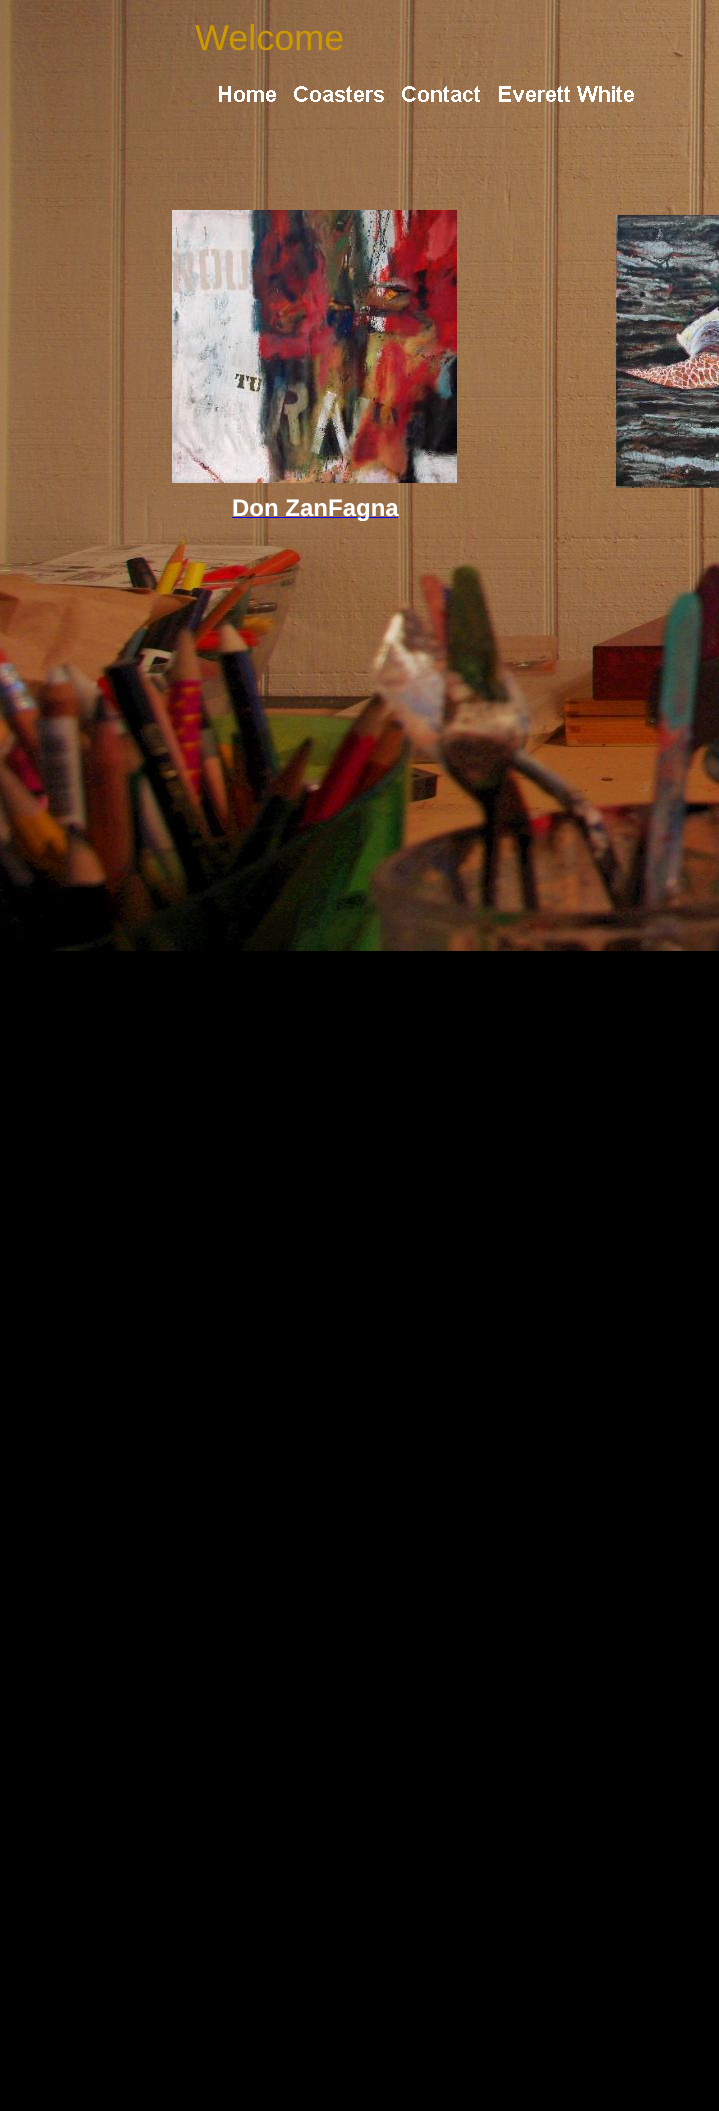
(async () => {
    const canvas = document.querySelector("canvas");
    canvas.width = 719;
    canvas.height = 2111;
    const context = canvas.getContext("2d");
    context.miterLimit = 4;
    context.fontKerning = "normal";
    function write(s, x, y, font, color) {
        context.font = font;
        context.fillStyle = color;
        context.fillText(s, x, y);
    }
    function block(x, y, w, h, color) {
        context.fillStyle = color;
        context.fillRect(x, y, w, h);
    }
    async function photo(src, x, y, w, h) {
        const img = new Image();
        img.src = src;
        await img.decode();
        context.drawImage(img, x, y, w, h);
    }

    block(0, 0, 719, 2111, "rgb(0, 0, 0)");
    await photo("media/1.png", 0, 0, 719, 951);
    write("Welcome", 195, 50, "36px Liberation Sans", "rgb(204, 153, 0)");
    await photo("media/2.png", 219, 86, 57, 16);
    await photo("media/3.png", 294, 86, 90, 16);
    await photo("media/4.png", 402, 86, 78, 16);
    await photo("media/5.png", 499, 86, 135, 16);
    await photo("media/6.png", 616, 215, 103, 273);
    await photo("media/7.png", 172, 210, 285, 273);
    block(232, 517, 166, 1, "rgb(0, 0, 255)");
    write("Don ZanFagna", 232, 516, "bold 24px Liberation Sans", "rgb(255, 255, 255)");
})();
